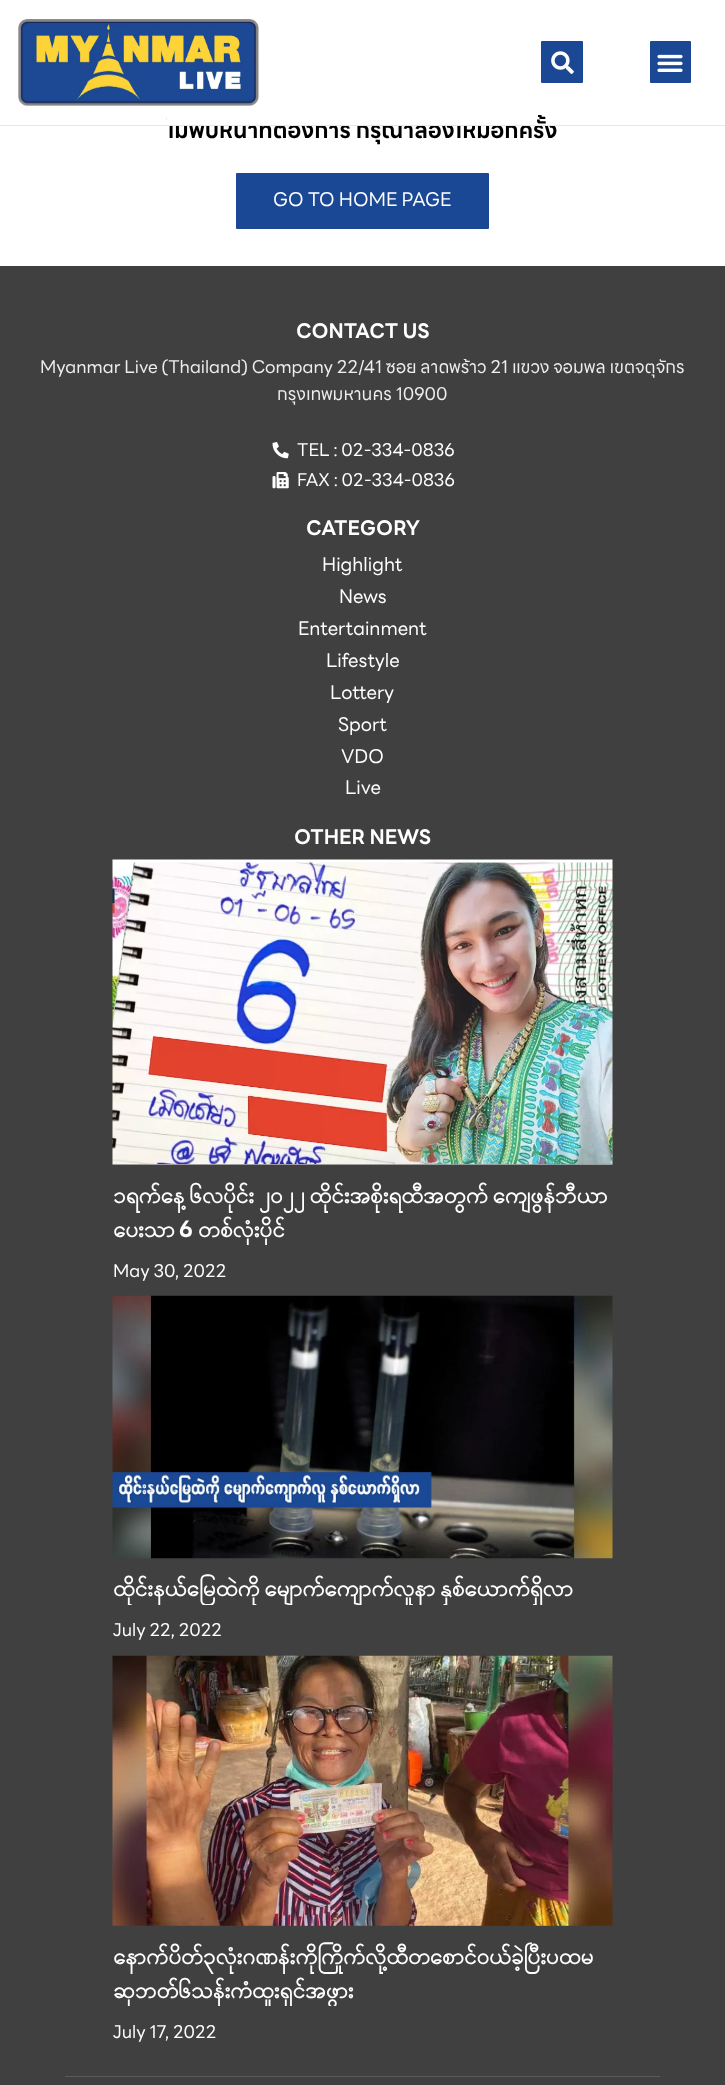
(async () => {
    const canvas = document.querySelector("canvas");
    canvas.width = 725;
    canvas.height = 2085;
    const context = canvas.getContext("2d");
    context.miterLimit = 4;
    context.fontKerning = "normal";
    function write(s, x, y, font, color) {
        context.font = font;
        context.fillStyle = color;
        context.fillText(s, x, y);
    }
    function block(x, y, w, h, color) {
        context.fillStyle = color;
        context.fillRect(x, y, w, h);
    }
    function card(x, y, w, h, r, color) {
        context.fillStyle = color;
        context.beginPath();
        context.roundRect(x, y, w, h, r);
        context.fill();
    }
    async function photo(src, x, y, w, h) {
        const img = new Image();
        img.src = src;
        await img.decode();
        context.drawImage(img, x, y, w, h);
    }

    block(0, 0, 725, 2085, "rgb(255, 255, 255)");
    write("ไม่พบหน้าที่ต้องการ กรุณาลองใหม่อีกครั้ง", 167, 138, "bold 22.5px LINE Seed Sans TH", "rgb(0, 0, 0)");
    block(167, 113, 368, 12, "rgb(255, 255, 255)");
    block(0, 125, 725, 1, "rgb(231, 231, 231)");
    await photo("media/1.png", 18, 19, 241, 87);
    card(541, 41, 42, 42, 1, "rgb(27, 72, 148)");
    await photo("media/2.png", 551, 51, 23, 23);
    card(650, 41, 41, 42, 1, "rgb(27, 72, 148)");
    await photo("media/3.png", 657, 54, 26, 18);
    card(236, 173, 253, 56, 1, "rgb(27, 72, 148)");
    write("GO TO HOME PAGE", 273, 206, "18.75px LINE Seed Sans TH", "rgb(255, 255, 255)");
    block(0, 266, 725, 1819, "rgb(64, 64, 64)");
    write("CONTACT US", 296, 338, "bold 20px LINE Seed Sans TH", "rgb(255, 255, 255)");
    write("Myanmar Live (Thailand) Company 22/41 ซอย ลาดพร้าว 21 แขวง จอมพล เขตจตุจักร", 40, 373, "17.5px LINE Seed Sans TH", "rgb(238, 238, 238)");
    write("กรุงเทพมหานคร 10900", 277, 400, "17.5px LINE Seed Sans TH", "rgb(238, 238, 238)");
    await photo("media/4.png", 272, 442, 17, 17);
    write("TEL : 02-334-0836", 297, 456, "17.5px LINE Seed Sans TH", "rgb(255, 255, 255)");
    await photo("media/5.png", 272, 472, 17, 17);
    write("FAX : 02-334-0836", 297, 486, "17.5px LINE Seed Sans TH", "rgb(255, 255, 255)");
    write("CATEGORY", 306, 535, "bold 20px LINE Seed Sans TH", "rgb(255, 255, 255)");
    write("Highlight", 322, 571, "18.75px LINE Seed Sans TH", "rgb(255, 255, 255)");
    write("News", 339, 603, "18.75px LINE Seed Sans TH", "rgb(255, 255, 255)");
    write("Entertainment", 298, 635, "18.75px LINE Seed Sans TH", "rgb(255, 255, 255)");
    write("Lifestyle", 326, 667, "18.75px LINE Seed Sans TH", "rgb(255, 255, 255)");
    write("Lottery", 330, 699, "18.75px LINE Seed Sans TH", "rgb(255, 255, 255)");
    write("Sport", 338, 731, "18.75px LINE Seed Sans TH", "rgb(255, 255, 255)");
    write("VDO", 341, 763, "18.75px LINE Seed Sans TH", "rgb(255, 255, 255)");
    write("Live", 345, 794, "18.75px LINE Seed Sans TH", "rgb(255, 255, 255)");
    write("OTHER NEWS", 294, 844, "bold 20px LINE Seed Sans TH", "rgb(255, 255, 255)");
    await photo("media/6.png", 112, 859, 501, 306);
    context.wordSpacing = "-3.5px";
    write("၁ရက်နေ့ ၆လပိုင်း ၂၀၂၂ ထိုင်းအစိုးရထီအတွက် ကျေဖွန်ဘီယာ", 113, 1203, "bold 22.5px Padauk", "rgb(255, 255, 255)");
    context.wordSpacing = "0px";
    write("ပေးသာ", 113, 1237, "bold 22.5px Padauk", "rgb(255, 255, 255)");
    write("6", 179, 1237, "bold 22.5px LINE Seed Sans TH", "rgb(255, 255, 255)");
    context.save();
    context.beginPath();
    context.rect(113, 1178, 500, 67);
    context.clip();
    write("တစ်လုံးပိုင်", 198, 1237, "bold 22.5px Padauk", "rgb(255, 255, 255)");
    context.restore();
    write("May 30, 2022", 113, 1277, "17.5px LINE Seed Sans TH", "rgb(255, 255, 255)");
    await photo("media/7.png", 112, 1295, 501, 264);
    context.save();
    context.beginPath();
    context.rect(113, 1571, 500, 34);
    context.clip();
    context.wordSpacing = "-3.5px";
    write("ထိုင်းနယ်မြေထဲကို မျောက်ကျောက်လူနာ နှစ်ယောက်ရှိလာ", 113, 1596, "bold 22.5px Padauk", "rgb(255, 255, 255)");
    context.restore();
    write("July 22, 2022", 113, 1636, "17.5px LINE Seed Sans TH", "rgb(255, 255, 255)");
    await photo("media/8.png", 112, 1655, 501, 271);
    context.save();
    context.beginPath();
    context.rect(113, 1939, 500, 67);
    context.clip();
    write("နောက်ပိတ်၃လုံးဂဏန်းကိုကြိုက်လို့ထီတစောင်ဝယ်ခဲ့ပြီးပထမ", 113, 1964, "bold 22.5px Padauk", "rgb(255, 255, 255)");
    write("ဆုဘတ်၆သန်းကံထူးရှင်အဖွား", 113, 1998, "bold 22.5px Padauk", "rgb(255, 255, 255)");
    context.restore();
    write("July 17, 2022", 113, 2038, "17.5px LINE Seed Sans TH", "rgb(255, 255, 255)");
    block(65, 2076, 595, 1, "rgb(90, 90, 90)");
})();
